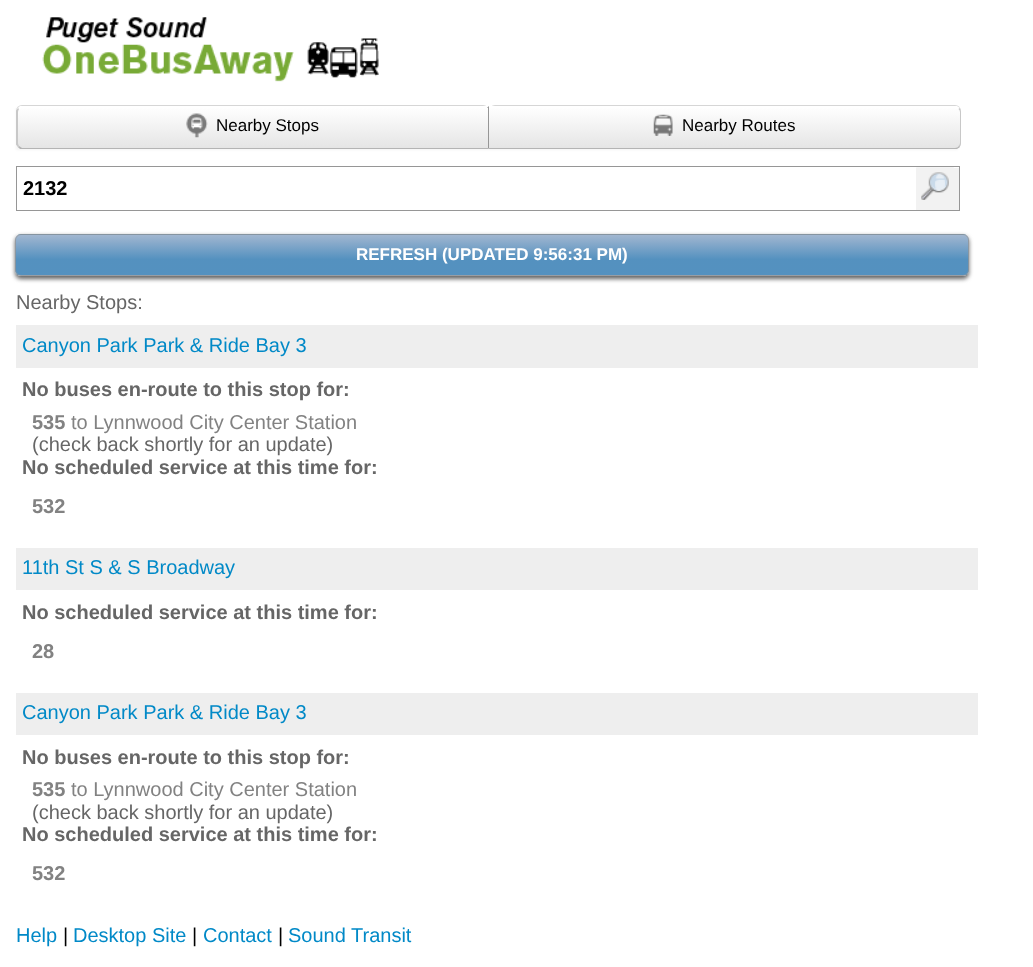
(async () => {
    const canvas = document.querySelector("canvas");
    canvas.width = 1033;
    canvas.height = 967;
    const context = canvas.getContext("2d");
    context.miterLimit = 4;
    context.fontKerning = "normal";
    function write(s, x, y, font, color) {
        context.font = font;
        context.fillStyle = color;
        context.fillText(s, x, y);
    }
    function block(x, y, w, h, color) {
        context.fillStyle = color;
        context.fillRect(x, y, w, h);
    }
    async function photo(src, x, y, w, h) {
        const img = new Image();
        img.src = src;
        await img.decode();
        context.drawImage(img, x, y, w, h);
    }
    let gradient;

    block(0, 0, 1033, 967, "rgb(255, 255, 255)");
    await photo("media/1.png", 42, 17, 337, 65);
    context.fillStyle = "rgba(240, 240, 240, 0.75)";
    context.filter = "blur(1px)";
    context.beginPath();
    context.rect(16, 108, 942, 42);
    context.fill();
    context.filter = "none";
    context.fillStyle = "rgba(200, 200, 200, 0.75)";
    context.filter = "blur(0.5px)";
    context.beginPath();
    context.roundRect(16, 105, 473, 43, 6);
    context.fill();
    context.filter = "none";
    context.save();
    context.beginPath();
    context.roundRect(16, 106, 473, 43, [6, 0, 0, 6]);
    context.clip();
    gradient = context.createLinearGradient(253, 67, 253, 108);
    gradient.addColorStop(0, "rgb(255, 255, 255)");
    gradient.addColorStop(1, "rgb(229, 229, 229)");
    context.fillStyle = gradient;
    context.fillRect(16, 106, 473, 2);
    gradient = context.createLinearGradient(253, 107, 253, 148);
    gradient.addColorStop(0, "rgb(255, 255, 255)");
    gradient.addColorStop(1, "rgb(229, 229, 229)");
    context.fillStyle = gradient;
    context.fillRect(16, 108, 472, 40);
    context.restore();
    context.fillStyle = "rgb(255, 255, 255)";
    context.beginPath();
    context.moveTo(22, 108);
    context.lineTo(19, 109);
    context.lineTo(18, 108);
    context.lineTo(20, 106);
    context.lineTo(489, 106);
    context.lineTo(487, 108);
    context.closePath();
    context.fill();
    context.fillStyle = "rgb(150, 150, 150)";
    context.beginPath();
    context.moveTo(489, 106);
    context.lineTo(487, 108);
    context.lineTo(488, 108);
    context.lineTo(488, 148);
    context.lineTo(489, 149);
    context.closePath();
    context.fill();
    context.fillStyle = "rgb(180, 180, 180)";
    context.beginPath();
    context.moveTo(489, 149);
    context.lineTo(20, 149);
    context.lineTo(18, 147);
    context.lineTo(19, 146);
    context.lineTo(22, 148);
    context.lineTo(488, 148);
    context.closePath();
    context.fill();
    context.fillStyle = "rgb(200, 200, 200)";
    context.beginPath();
    context.moveTo(16, 110.5);
    context.lineTo(18, 108);
    context.lineTo(19, 109);
    context.bezierCurveTo(18.5, 110, 18, 111, 18, 112);
    context.lineTo(18, 143);
    context.bezierCurveTo(18, 144, 18.5, 145, 19, 146);
    context.lineTo(18, 147);
    context.lineTo(16, 144.5);
    context.closePath();
    context.fill();
    await photo("media/2.png", 186, 113, 22, 25);
    write("Nearby Stops", 216, 131, "17px Liberation Sans", "rgb(0, 0, 0)");
    context.fillStyle = "rgba(200, 200, 200, 0.75)";
    context.filter = "blur(0.5px)";
    context.beginPath();
    context.roundRect(489, 105, 472, 43, 6);
    context.fill();
    context.filter = "none";
    context.save();
    context.beginPath();
    context.roundRect(489, 106, 472, 43, [0, 6, 6, 0]);
    context.clip();
    gradient = context.createLinearGradient(724, 107, 724, 148);
    gradient.addColorStop(0, "rgb(255, 255, 255)");
    gradient.addColorStop(1, "rgb(229, 229, 229)");
    context.fillStyle = gradient;
    context.fillRect(489, 108, 472, 40);
    context.restore();
    context.fillStyle = "rgb(255, 255, 255)";
    context.beginPath();
    context.moveTo(489, 108);
    context.lineTo(489, 106);
    context.lineTo(957, 106);
    context.lineTo(960, 108);
    context.lineTo(958, 109);
    context.lineTo(955, 108);
    context.closePath();
    context.fill();
    context.fillStyle = "rgb(200, 200, 200)";
    context.beginPath();
    context.moveTo(958.5, 146);
    context.bezierCurveTo(959.5, 145, 960, 144, 960, 143);
    context.lineTo(960, 112);
    context.bezierCurveTo(960, 111, 959.5, 110, 958.5, 109);
    context.lineTo(959.5, 108);
    context.bezierCurveTo(960.5, 109, 961, 110.5, 961, 112);
    context.lineTo(961, 143);
    context.bezierCurveTo(961, 144.5, 960.5, 146, 959.5, 147);
    context.closePath();
    context.fill();
    context.fillStyle = "rgb(180, 180, 180)";
    context.beginPath();
    context.moveTo(957, 149);
    context.lineTo(489, 149);
    context.lineTo(489, 148);
    context.lineTo(955, 148);
    context.bezierCurveTo(957, 148, 958, 147, 959, 146);
    context.lineTo(960, 147);
    context.closePath();
    context.fill();
    await photo("media/3.png", 653, 114, 20, 22);
    write("Nearby Routes", 682, 131, "17px Liberation Sans", "rgb(0, 0, 0)");
    context.strokeStyle = "rgb(150, 150, 150)";
    context.strokeRect(16.5, 166.5, 943, 44);
    write("2132", 23, 195, "bold 20px Liberation Sans", "rgb(0, 0, 0)");
    block(916, 168, 43, 42, "rgb(242, 242, 242)");
    await photo("media/4.png", 916, 167, 38, 33);
    context.save();
    context.beginPath();
    context.moveTo(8, 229);
    context.lineTo(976, 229);
    context.lineTo(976, 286);
    context.lineTo(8, 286);
    context.closePath();
    context.moveTo(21, 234);
    context.lineTo(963, 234);
    context.bezierCurveTo(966.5, 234, 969, 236.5, 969, 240);
    context.lineTo(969, 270);
    context.bezierCurveTo(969, 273.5, 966.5, 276, 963, 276);
    context.lineTo(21, 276);
    context.bezierCurveTo(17.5, 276, 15, 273.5, 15, 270);
    context.lineTo(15, 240);
    context.bezierCurveTo(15, 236.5, 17.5, 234, 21, 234);
    context.closePath();
    context.clip("evenodd");
    context.fillStyle = "rgb(100, 100, 100)";
    context.filter = "blur(2px)";
    context.beginPath();
    context.roundRect(15, 236, 954, 43, 6);
    context.fill();
    context.filter = "none";
    context.restore();
    context.save();
    context.beginPath();
    context.roundRect(15, 234, 954, 42, 6);
    context.clip();
    gradient = context.createLinearGradient(492, 195, 492, 235);
    gradient.addColorStop(0, "rgb(161, 182, 208)");
    gradient.addColorStop(0.61, "rgb(84, 145, 191)");
    context.fillStyle = gradient;
    context.fillRect(15, 234, 954, 1);
    gradient = context.createLinearGradient(492, 235, 492, 275);
    gradient.addColorStop(0, "rgba(117, 148, 186, 0.68)");
    gradient.addColorStop(0.61, "rgba(0, 91, 160, 0.67)");
    context.fillStyle = gradient;
    context.fillRect(15, 235, 954, 40);
    gradient = context.createLinearGradient(492, 275, 492, 315);
    gradient.addColorStop(0, "rgba(117, 148, 186, 0.68)");
    gradient.addColorStop(0.61, "rgba(0, 91, 160, 0.67)");
    context.fillStyle = gradient;
    context.fillRect(15, 275, 954, 1);
    context.restore();
    context.beginPath();
    context.roundRect(15.5, 234.5, 953, 41, 5.5);
    context.strokeStyle = "rgba(150, 150, 150, 0.75)";
    context.stroke();
    write("REFRESH (UPDATED 9:56:31 PM)", 356, 260, "bold 17px Liberation Sans", "rgb(255, 255, 255)");
    write("Nearby Stops:", 16, 309, "20px Liberation Sans", "rgb(102, 102, 102)");
    block(16, 325, 962, 43, "rgb(238, 238, 238)");
    write("Canyon Park Park & Ride Bay 3", 22, 352, "20px Liberation Sans", "rgb(1, 137, 199)");
    write("No buses en-route to this stop for:", 22, 396, "bold 20px Liberation Sans", "rgb(102, 102, 102)");
    write("535", 32, 429, "bold 20px Liberation Sans", "rgb(130, 130, 130)");
    write("to Lynnwood City Center Station", 71, 429, "20px Liberation Sans", "rgb(130, 130, 130)");
    write("(check back shortly for an update)", 32, 451, "20px Liberation Sans", "rgb(102, 102, 102)");
    write("No scheduled service at this time for:", 22, 474, "bold 20px Liberation Sans", "rgb(102, 102, 102)");
    write("532", 32, 513, "bold 20px Liberation Sans", "rgb(130, 130, 130)");
    block(16, 548, 962, 42, "rgb(238, 238, 238)");
    write("11th St S & S Broadway", 22, 574, "20px Liberation Sans", "rgb(1, 137, 199)");
    write("No scheduled service at this time for:", 22, 619, "bold 20px Liberation Sans", "rgb(102, 102, 102)");
    write("28", 32, 658, "bold 20px Liberation Sans", "rgb(130, 130, 130)");
    block(16, 693, 962, 42, "rgb(238, 238, 238)");
    write("Canyon Park Park & Ride Bay 3", 22, 719, "20px Liberation Sans", "rgb(1, 137, 199)");
    write("No buses en-route to this stop for:", 22, 764, "bold 20px Liberation Sans", "rgb(102, 102, 102)");
    write("535", 32, 796, "bold 20px Liberation Sans", "rgb(130, 130, 130)");
    write("to Lynnwood City Center Station", 71, 796, "20px Liberation Sans", "rgb(130, 130, 130)");
    write("(check back shortly for an update)", 32, 819, "20px Liberation Sans", "rgb(102, 102, 102)");
    write("No scheduled service at this time for:", 22, 841, "bold 20px Liberation Sans", "rgb(102, 102, 102)");
    write("532", 32, 880, "bold 20px Liberation Sans", "rgb(130, 130, 130)");
    write("Help", 16, 942, "20px Liberation Sans", "rgb(1, 137, 199)");
    write("|", 63, 942, "20px Liberation Sans", "rgb(0, 0, 0)");
    write("Desktop Site", 73, 942, "20px Liberation Sans", "rgb(1, 137, 199)");
    write("|", 192, 942, "20px Liberation Sans", "rgb(0, 0, 0)");
    write("Contact", 203, 942, "20px Liberation Sans", "rgb(1, 137, 199)");
    write("|", 278, 942, "20px Liberation Sans", "rgb(0, 0, 0)");
    write("Sound Transit", 288, 942, "20px Liberation Sans", "rgb(1, 137, 199)");
})();
